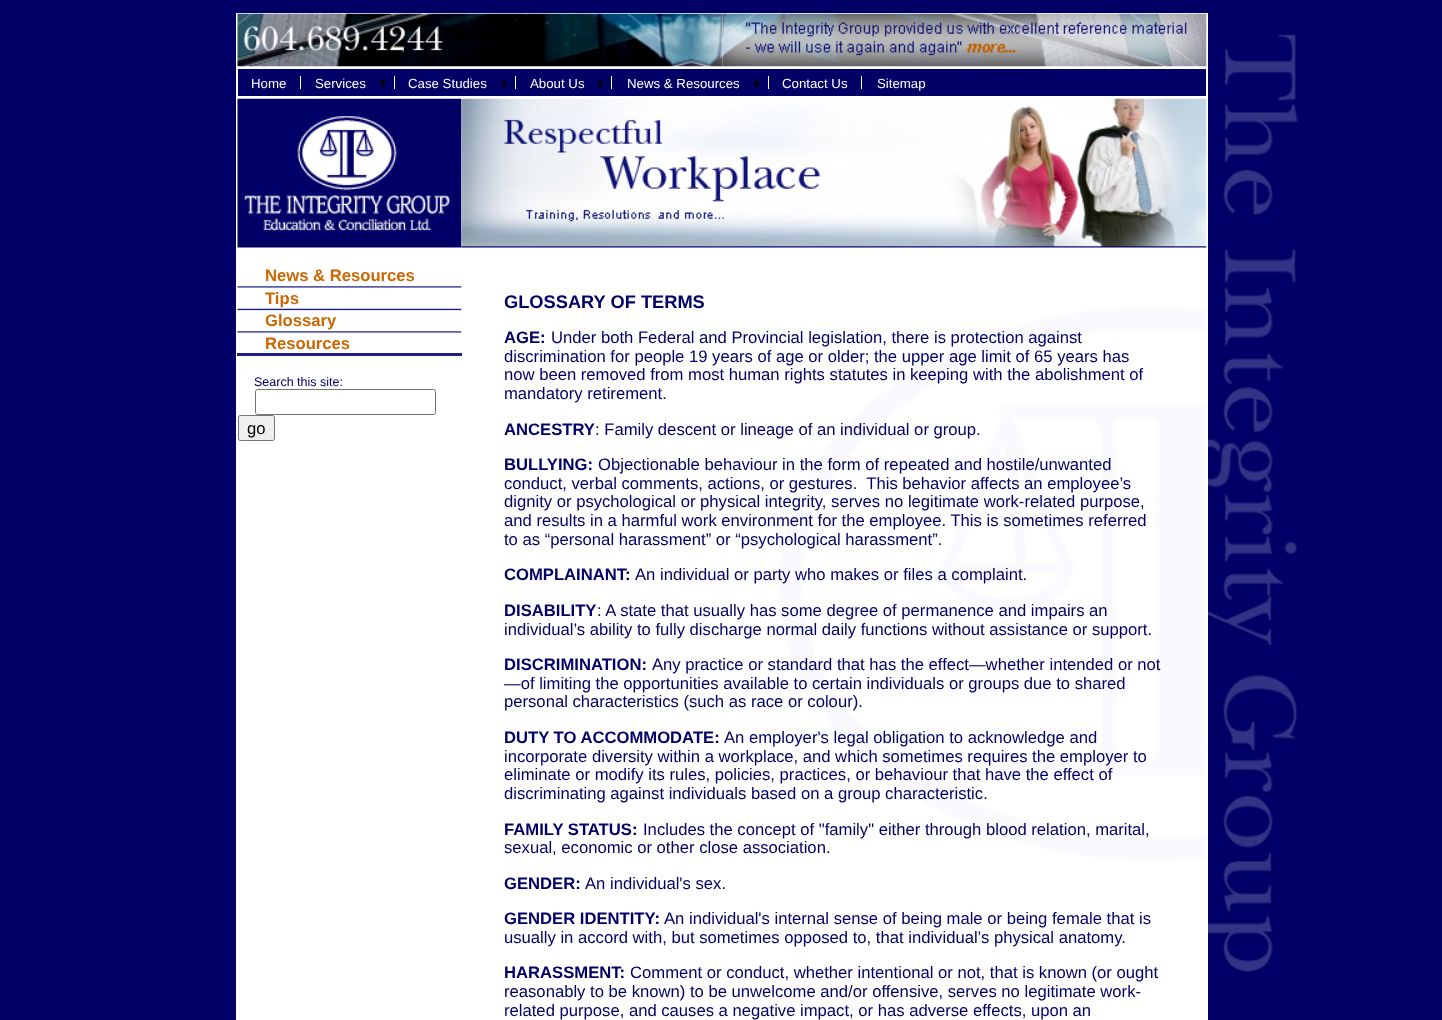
(async () => {
    const canvas = document.querySelector("canvas");
    canvas.width = 1442;
    canvas.height = 1020;
    const context = canvas.getContext("2d");
    context.miterLimit = 4;
    context.fontKerning = "normal";
    function write(s, x, y, font, color) {
        context.font = font;
        context.fillStyle = color;
        context.fillText(s, x, y);
    }
    function block(x, y, w, h, color) {
        context.fillStyle = color;
        context.fillRect(x, y, w, h);
    }
    async function photo(src, x, y, w, h) {
        const img = new Image();
        img.src = src;
        await img.decode();
        context.drawImage(img, x, y, w, h);
    }

    block(0, 0, 1442, 1020, "rgb(0, 0, 102)");
    await photo("media/1.png", 1208, 34, 90, 938);
    block(236, 13, 972, 1007, "rgb(255, 255, 255)");
    await photo("media/2.png", 237, 13, 486, 54);
    await photo("media/3.png", 722, 13, 485, 54);
    block(238, 69, 968, 27, "rgb(0, 0, 102)");
    write("Home", 251, 88, "13.25px Liberation Sans", "rgb(255, 255, 255)");
    block(300, 76, 1, 13, "rgb(255, 255, 255)");
    write("Services", 315, 88, "13.25px Liberation Sans", "rgb(255, 255, 255)");
    await photo("media/4.png", 381, 78, 6, 10);
    block(394, 76, 1, 13, "rgb(255, 255, 255)");
    write("Case Studies", 408, 88, "13.25px Liberation Sans", "rgb(255, 255, 255)");
    await photo("media/5.png", 502, 78, 6, 10);
    block(515, 76, 1, 13, "rgb(255, 255, 255)");
    write("About Us", 530, 88, "13.25px Liberation Sans", "rgb(255, 255, 255)");
    await photo("media/6.png", 598, 78, 6, 10);
    block(611, 76, 1, 13, "rgb(255, 255, 255)");
    write("News & Resources", 627, 88, "13.25px Liberation Sans", "rgb(255, 255, 255)");
    await photo("media/7.png", 754, 78, 7, 10);
    block(768, 76, 1, 13, "rgb(255, 255, 255)");
    write("Contact Us", 782, 88, "13.25px Liberation Sans", "rgb(255, 255, 255)");
    block(861, 76, 1, 13, "rgb(255, 255, 255)");
    write("Sitemap", 877, 88, "13.25px Liberation Sans", "rgb(255, 255, 255)");
    await photo("media/8.png", 237, 98, 225, 150);
    write("News & Resources", 265, 281, "bold 16.65px Liberation Sans", "rgb(204, 102, 0)");
    await photo("media/9.png", 237, 286, 225, 2);
    write("Tips", 265, 304, "bold 16.65px Liberation Sans", "rgb(204, 102, 0)");
    await photo("media/10.png", 237, 307, 225, 4);
    write("Glossary", 265, 326, "bold 16.65px Liberation Sans", "rgb(204, 102, 0)");
    await photo("media/9.png", 237, 331, 225, 2);
    write("Resources", 265, 349, "bold 16.65px Liberation Sans", "rgb(204, 102, 0)");
    block(237, 353, 225, 3, "rgb(30, 31, 127)");
    write("Search this site:", 254, 386, "12.5px Liberation Sans", "rgb(0, 0, 102)");
    context.beginPath();
    context.roundRect(255.5, 389.5, 180, 25, 2);
    context.strokeStyle = "rgb(118, 118, 118)";
    context.stroke();
    context.fillStyle = "rgb(239, 239, 239)";
    context.beginPath();
    context.roundRect(238.5, 415.5, 36, 25, 2);
    context.fill();
    context.stroke();
    write("go", 247, 434, "16.65px Liberation Sans", "rgb(0, 0, 0)");
    await photo("media/11.png", 461, 98, 746, 150);
    await photo("media/12.png", 780, 308, 426, 552);
    write("GLOSSARY OF TERMS", 504, 308, "bold 18.25px Liberation Sans", "rgb(0, 0, 102)");
    write("AGE:", 504, 343, "bold 16.65px Liberation Sans", "rgb(0, 0, 102)");
    write("Under both Federal and Provincial legislation, there is protection against", 551, 343, "16.65px Liberation Sans", "rgb(0, 0, 102)");
    write("discrimination for people 19 years of age or older; the upper age limit of 65 years has", 504, 362, "16.65px Liberation Sans", "rgb(0, 0, 102)");
    write("now been removed from most human rights statutes in keeping with the abolishment of", 504, 380, "16.65px Liberation Sans", "rgb(0, 0, 102)");
    write("mandatory retirement.", 504, 399, "16.65px Liberation Sans", "rgb(0, 0, 102)");
    write("ANCESTRY", 504, 435, "bold 16.65px Liberation Sans", "rgb(0, 0, 102)");
    write(": Family descent or lineage of an individual or group.", 595, 435, "16.65px Liberation Sans", "rgb(0, 0, 102)");
    write("BULLYING:", 504, 470, "bold 16.65px Liberation Sans", "rgb(0, 0, 102)");
    write("Objectionable behaviour in the form of repeated and hostile/unwanted", 598, 470, "16.65px Liberation Sans", "rgb(0, 0, 102)");
    write("conduct, verbal comments, actions, or gestures.  This behavior affects an employee’s", 504, 489, "16.65px Liberation Sans", "rgb(0, 0, 102)");
    write("dignity or psychological or physical integrity, serves no legitimate work-related purpose,", 504, 507, "16.65px Liberation Sans", "rgb(0, 0, 102)");
    write("and results in a harmful work environment for the employee. This is sometimes referred", 504, 526, "16.65px Liberation Sans", "rgb(0, 0, 102)");
    write("to as “personal harassment” or “psychological harassment”.", 504, 545, "16.65px Liberation Sans", "rgb(0, 0, 102)");
    write("COMPLAINANT:", 504, 580, "bold 16.65px Liberation Sans", "rgb(0, 0, 102)");
    write("An individual or party who makes or files a complaint.", 635, 580, "16.65px Liberation Sans", "rgb(0, 0, 102)");
    write("DISABILITY", 504, 616, "bold 16.65px Liberation Sans", "rgb(0, 0, 102)");
    write(": A state that usually has some degree of permanence and impairs an", 597, 616, "16.65px Liberation Sans", "rgb(0, 0, 102)");
    write("individual’s ability to fully discharge normal daily functions without assistance or support.", 504, 635, "16.65px Liberation Sans", "rgb(0, 0, 102)");
    write("DISCRIMINATION:", 504, 670, "bold 16.65px Liberation Sans", "rgb(0, 0, 102)");
    write("Any practice or standard that has the effect—whether intended or not", 652, 670, "16.65px Liberation Sans", "rgb(0, 0, 102)");
    write("—of limiting the opportunities available to certain individuals or groups due to shared", 504, 689, "16.65px Liberation Sans", "rgb(0, 0, 102)");
    write("personal characteristics (such as race or colour).", 504, 707, "16.65px Liberation Sans", "rgb(0, 0, 102)");
    write("DUTY TO ACCOMMODATE:", 504, 743, "bold 16.65px Liberation Sans", "rgb(0, 0, 102)");
    write("An employer's legal obligation to acknowledge and", 724, 743, "16.65px Liberation Sans", "rgb(0, 0, 102)");
    write("incorporate diversity within a workplace, and which sometimes requires the employer to", 504, 762, "16.65px Liberation Sans", "rgb(0, 0, 102)");
    write("eliminate or modify its rules, policies, practices, or behaviour that have the effect of", 504, 780, "16.65px Liberation Sans", "rgb(0, 0, 102)");
    write("discriminating against individuals based on a group characteristic.", 504, 799, "16.65px Liberation Sans", "rgb(0, 0, 102)");
    write("FAMILY STATUS:", 504, 835, "bold 16.65px Liberation Sans", "rgb(0, 0, 102)");
    write("Includes the concept of \"family\" either through blood relation, marital,", 643, 835, "16.65px Liberation Sans", "rgb(0, 0, 102)");
    write("sexual, economic or other close association.", 504, 853, "16.65px Liberation Sans", "rgb(0, 0, 102)");
    write("GENDER:", 504, 889, "bold 16.65px Liberation Sans", "rgb(0, 0, 102)");
    write("An individual's sex.", 585, 889, "16.65px Liberation Sans", "rgb(0, 0, 102)");
    write("GENDER IDENTITY:", 504, 924, "bold 16.65px Liberation Sans", "rgb(0, 0, 102)");
    write("An individual's internal sense of being male or being female that is", 664, 924, "16.65px Liberation Sans", "rgb(0, 0, 102)");
    write("usually in accord with, but sometimes opposed to, that individual’s physical anatomy.", 504, 943, "16.65px Liberation Sans", "rgb(0, 0, 102)");
    write("HARASSMENT:", 504, 978, "bold 16.65px Liberation Sans", "rgb(0, 0, 102)");
    write("Comment or conduct, whether intentional or not, that is known (or ought", 630, 978, "16.65px Liberation Sans", "rgb(0, 0, 102)");
    write("reasonably to be known) to be unwelcome and/or offensive, serves no legitimate work-", 504, 997, "16.65px Liberation Sans", "rgb(0, 0, 102)");
    write("related purpose, and causes a negative impact, or has adverse effects, upon an", 504, 1016, "16.65px Liberation Sans", "rgb(0, 0, 102)");
})();
